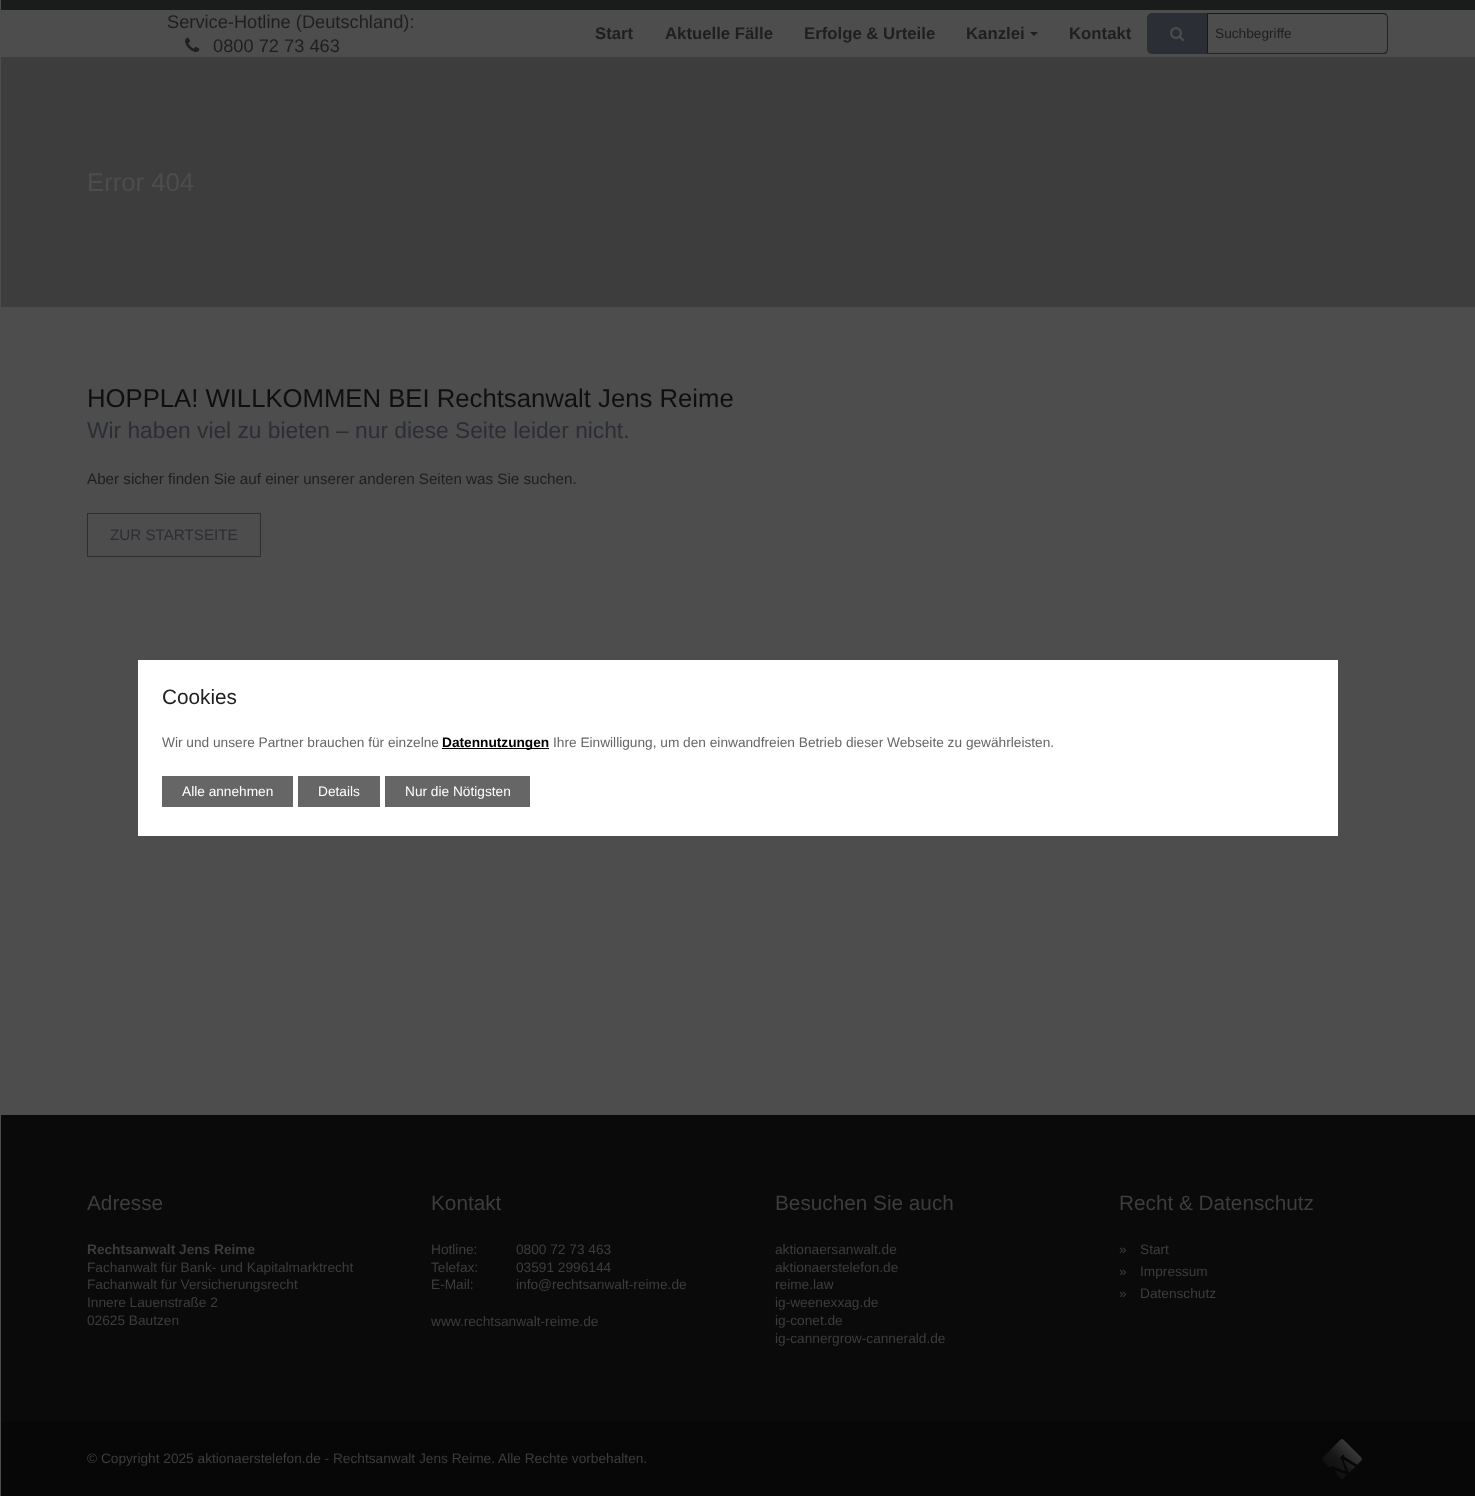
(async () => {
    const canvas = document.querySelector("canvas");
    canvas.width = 1475;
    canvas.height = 1496;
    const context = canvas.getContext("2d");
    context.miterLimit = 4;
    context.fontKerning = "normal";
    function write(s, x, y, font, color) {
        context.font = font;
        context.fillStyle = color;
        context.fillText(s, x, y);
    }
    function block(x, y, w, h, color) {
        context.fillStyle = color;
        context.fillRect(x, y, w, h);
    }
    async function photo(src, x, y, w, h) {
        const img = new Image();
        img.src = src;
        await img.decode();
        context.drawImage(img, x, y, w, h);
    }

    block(0, 0, 1475, 1496, "rgb(77, 77, 77)");
    block(1, 0, 1474, 10, "rgb(26, 27, 27)");
    write("Service-Hotline (Deutschland):", 167, 28, "18.25px Liberation Sans", "rgb(31, 31, 31)");
    await photo("media/1.png", 185, 37, 15, 15);
    write("0800 72 73 463", 213, 52, "18.25px Liberation Sans", "rgb(31, 31, 31)");
    write("Start", 595, 39, "bold 16.75px Liberation Sans", "rgb(31, 31, 31)");
    write("Aktuelle Fälle", 665, 39, "bold 16.75px Liberation Sans", "rgb(31, 31, 31)");
    write("Erfolge & Urteile", 804, 39, "bold 16.75px Liberation Sans", "rgb(31, 31, 31)");
    write("Kanzlei", 966, 39, "bold 16.75px Liberation Sans", "rgb(31, 31, 31)");
    context.beginPath();
    context.moveTo(1030, 32);
    context.lineTo(1038, 32);
    context.lineTo(1034, 36);
    context.closePath();
    context.fill();
    write("Kontakt", 1069, 39, "bold 16.75px Liberation Sans", "rgb(31, 31, 31)");
    context.fillStyle = "rgb(43, 46, 53)";
    context.beginPath();
    context.roundRect(1147, 13, 60, 41, [5, 0, 0, 5]);
    context.fill();
    await photo("media/2.png", 1170, 27, 15, 15);
    context.fillStyle = "rgb(24, 24, 24)";
    context.beginPath();
    context.moveTo(1207, 13);
    context.lineTo(1208, 14);
    context.lineTo(1383, 14);
    context.lineTo(1386, 15);
    context.lineTo(1387, 14);
    context.bezierCurveTo(1386, 14, 1384, 13, 1383, 13);
    context.closePath();
    context.fill();
    context.fillStyle = "rgb(35, 35, 35)";
    context.beginPath();
    context.moveTo(1388, 49);
    context.lineTo(1388, 18);
    context.bezierCurveTo(1388, 16.5, 1387.5, 15, 1386.5, 14.5);
    context.lineTo(1386, 15);
    context.bezierCurveTo(1386.5, 16, 1387, 17, 1387, 18);
    context.lineTo(1387, 49);
    context.bezierCurveTo(1387, 50, 1386.5, 51, 1386, 52);
    context.lineTo(1386.5, 52.5);
    context.bezierCurveTo(1387.5, 52, 1388, 50.5, 1388, 49);
    context.closePath();
    context.fill();
    context.beginPath();
    context.moveTo(1383, 54);
    context.bezierCurveTo(1384, 54, 1386, 54, 1387, 53);
    context.lineTo(1386, 52);
    context.lineTo(1383, 53);
    context.lineTo(1208, 53);
    context.lineTo(1207, 54);
    context.closePath();
    context.fill();
    context.fillStyle = "rgb(24, 24, 24)";
    context.beginPath();
    context.moveTo(1207, 13);
    context.lineTo(1207, 54);
    context.lineTo(1208, 53);
    context.lineTo(1208, 14);
    context.closePath();
    context.fill();
    write("Suchbegriffe", 1215, 38, "13.7px Liberation Sans", "rgb(31, 31, 31)");
    block(1, 57, 1474, 250, "rgb(61, 61, 61)");
    write("Error 404", 87, 191, "25.7px Liberation Sans", "rgb(77, 77, 77)");
    write("HOPPLA! WILLKOMMEN BEI Rechtsanwalt Jens Reime", 87, 407, "25.7px Liberation Sans", "rgb(15, 15, 15)");
    write("Wir haben viel zu bieten – nur diese Seite leider nicht.", 87, 438, "22.75px Liberation Sans", "rgb(43, 46, 53)");
    write("Aber sicher finden Sie auf einer unserer anderen Seiten was Sie suchen.", 87, 484, "15.2px Liberation Sans", "rgb(31, 31, 31)");
    context.strokeStyle = "rgb(43, 46, 53)";
    context.strokeRect(87.5, 513.5, 173, 43);
    write("ZUR STARTSEITE", 110, 540, "15.2px Liberation Sans", "rgb(43, 46, 53)");
    block(138, 660, 1200, 176, "rgb(255, 255, 255)");
    write("Cookies", 162, 704, "20.75px Liberation Sans", "rgb(31, 31, 31)");
    write("Wir und unsere Partner brauchen für einzelne", 162, 747, "13.7px Liberation Sans", "rgb(102, 102, 102)");
    block(442, 748, 107, 1, "rgb(0, 0, 0)");
    write("Datennutzungen", 442, 747, "bold 13.7px Liberation Sans", "rgb(0, 0, 0)");
    write("Ihre Einwilligung, um den einwandfreien Betrieb dieser Webseite zu gewährleisten.", 553, 747, "13.7px Liberation Sans", "rgb(102, 102, 102)");
    block(162, 776, 131, 31, "rgb(102, 102, 102)");
    write("Alle annehmen", 182, 796, "13.7px Liberation Sans", "rgb(255, 255, 255)");
    block(298, 776, 82, 31, "rgb(102, 102, 102)");
    write("Details", 318, 796, "13.7px Liberation Sans", "rgb(255, 255, 255)");
    block(385, 776, 145, 31, "rgb(102, 102, 102)");
    write("Nur die Nötigsten", 405, 796, "13.7px Liberation Sans", "rgb(255, 255, 255)");
    block(1, 1115, 1474, 307, "rgb(10, 10, 10)");
    write("Adresse", 87, 1210, "20.75px Liberation Sans", "rgb(61, 61, 61)");
    write("Rechtsanwalt Jens Reime", 87, 1254, "bold 13.7px Liberation Sans", "rgb(61, 61, 61)");
    write("Fachanwalt für Bank- und Kapitalmarktrecht", 87, 1272, "13.7px Liberation Sans", "rgb(61, 61, 61)");
    write("Fachanwalt für Versicherungsrecht", 87, 1289, "13.7px Liberation Sans", "rgb(61, 61, 61)");
    write("Innere Lauenstraße 2", 87, 1307, "13.7px Liberation Sans", "rgb(61, 61, 61)");
    write("02625 Bautzen", 87, 1325, "13.7px Liberation Sans", "rgb(61, 61, 61)");
    write("Kontakt", 431, 1210, "20.75px Liberation Sans", "rgb(61, 61, 61)");
    write("Hotline:", 431, 1254, "13.7px Liberation Sans", "rgb(61, 61, 61)");
    write("0800 72 73 463", 516, 1254, "13.7px Liberation Sans", "rgb(61, 61, 61)");
    write("Telefax:", 431, 1272, "13.7px Liberation Sans", "rgb(61, 61, 61)");
    write("03591 2996144", 516, 1272, "13.7px Liberation Sans", "rgb(61, 61, 61)");
    write("E-Mail:", 431, 1289, "13.7px Liberation Sans", "rgb(61, 61, 61)");
    write("info@rechtsanwalt-reime.de", 516, 1289, "13.7px Liberation Sans", "rgb(61, 61, 61)");
    write("www.rechtsanwalt-reime.de", 431, 1326, "13.7px Liberation Sans", "rgb(61, 61, 61)");
    write("Besuchen Sie auch", 775, 1210, "20.75px Liberation Sans", "rgb(61, 61, 61)");
    write("aktionaersanwalt.de", 775, 1254, "13.7px Liberation Sans", "rgb(61, 61, 61)");
    write("aktionaerstelefon.de", 775, 1272, "13.7px Liberation Sans", "rgb(61, 61, 61)");
    write("reime.law", 775, 1289, "13.7px Liberation Sans", "rgb(61, 61, 61)");
    write("ig-weenexxag.de", 775, 1307, "13.7px Liberation Sans", "rgb(61, 61, 61)");
    write("ig-conet.de", 775, 1325, "13.7px Liberation Sans", "rgb(61, 61, 61)");
    write("ig-cannergrow-cannerald.de", 775, 1343, "13.7px Liberation Sans", "rgb(61, 61, 61)");
    write("Recht & Datenschutz", 1119, 1210, "20.75px Liberation Sans", "rgb(61, 61, 61)");
    write("»", 1119, 1254, "13.7px Liberation Sans", "rgb(61, 61, 61)");
    write("Start", 1140, 1254, "13.7px Liberation Sans", "rgb(61, 61, 61)");
    write("»", 1119, 1276, "13.7px Liberation Sans", "rgb(61, 61, 61)");
    write("Impressum", 1140, 1276, "13.7px Liberation Sans", "rgb(61, 61, 61)");
    write("»", 1119, 1298, "13.7px Liberation Sans", "rgb(61, 61, 61)");
    write("Datenschutz", 1140, 1298, "13.7px Liberation Sans", "rgb(61, 61, 61)");
    block(1, 1422, 1474, 74, "rgb(7, 7, 7)");
    write("© Copyright 2025 aktionaerstelefon.de - Rechtsanwalt Jens Reime. Alle Rechte vorbehalten.", 87, 1463, "13.7px Liberation Sans", "rgb(61, 61, 61)");
    await photo("media/3.png", 1322, 1439, 40, 40);
})();
